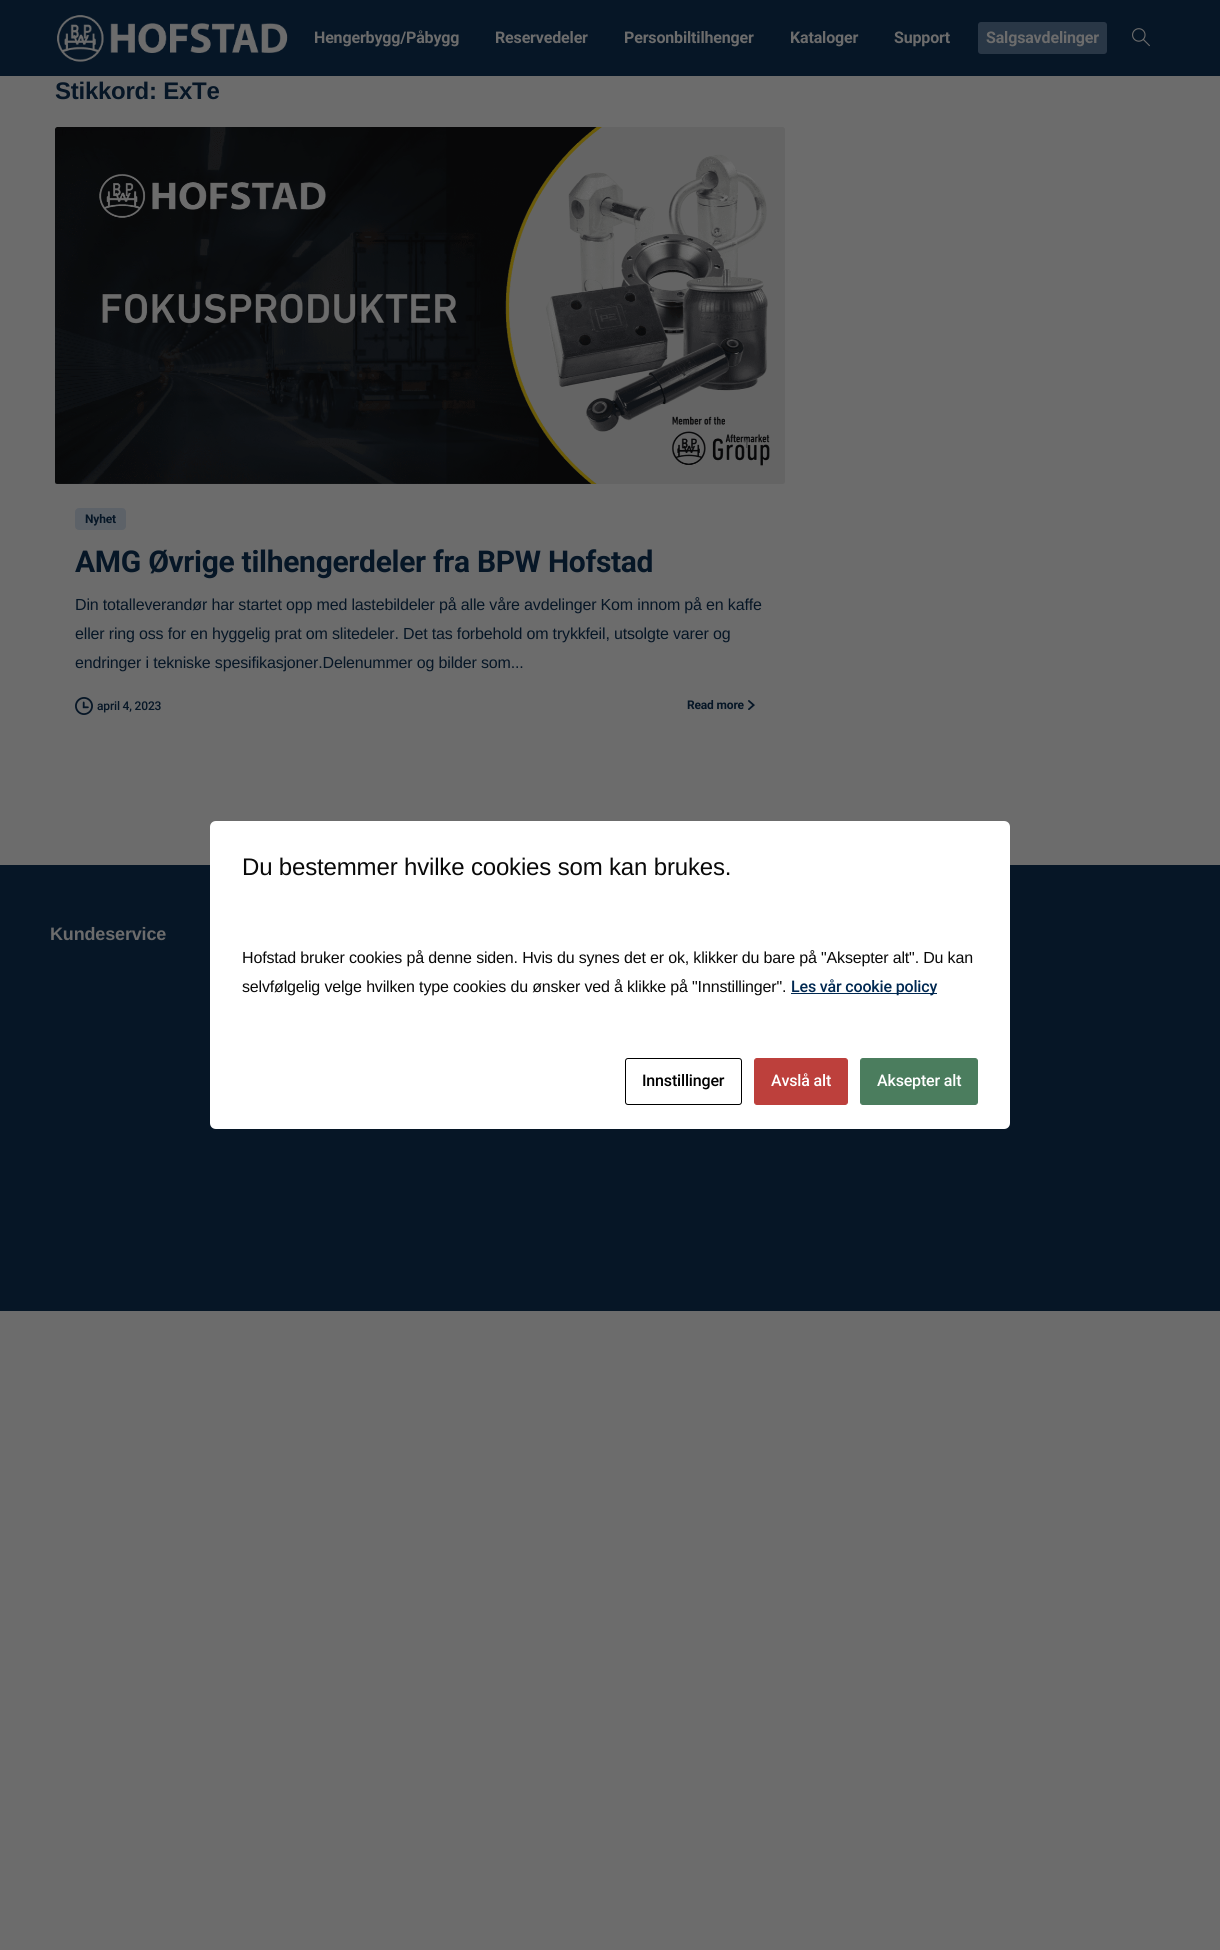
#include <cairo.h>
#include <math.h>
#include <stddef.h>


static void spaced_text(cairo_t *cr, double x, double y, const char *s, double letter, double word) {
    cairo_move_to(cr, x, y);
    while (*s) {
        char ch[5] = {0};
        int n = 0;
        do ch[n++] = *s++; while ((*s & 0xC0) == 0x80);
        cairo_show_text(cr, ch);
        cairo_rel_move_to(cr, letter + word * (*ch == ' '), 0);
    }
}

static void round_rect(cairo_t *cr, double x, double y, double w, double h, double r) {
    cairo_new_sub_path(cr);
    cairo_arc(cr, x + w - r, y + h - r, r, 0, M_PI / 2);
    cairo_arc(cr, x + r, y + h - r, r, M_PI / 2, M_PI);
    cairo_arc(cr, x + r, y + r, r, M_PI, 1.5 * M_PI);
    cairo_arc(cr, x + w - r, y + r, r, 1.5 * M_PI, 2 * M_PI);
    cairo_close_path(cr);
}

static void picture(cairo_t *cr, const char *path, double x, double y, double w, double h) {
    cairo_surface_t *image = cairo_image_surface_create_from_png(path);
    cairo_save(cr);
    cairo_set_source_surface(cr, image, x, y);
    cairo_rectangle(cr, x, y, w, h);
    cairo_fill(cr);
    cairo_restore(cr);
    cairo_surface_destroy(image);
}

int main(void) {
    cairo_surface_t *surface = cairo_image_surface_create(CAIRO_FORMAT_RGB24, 1220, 1950);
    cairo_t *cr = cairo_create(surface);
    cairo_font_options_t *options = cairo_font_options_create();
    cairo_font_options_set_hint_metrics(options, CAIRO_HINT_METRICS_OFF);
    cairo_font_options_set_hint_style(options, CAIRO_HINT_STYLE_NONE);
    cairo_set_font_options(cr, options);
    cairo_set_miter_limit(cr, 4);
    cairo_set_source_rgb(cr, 0.424, 0.424, 0.424);
    cairo_paint(cr);
    cairo_set_source_rgb(cr, 0.024, 0.086, 0.149);
    cairo_rectangle(cr, 0, 0, 1220, 76);
    cairo_fill(cr);
    picture(cr, "img1.png", 57, 15, 231, 47);
    cairo_select_font_face(cr, "Roboto", CAIRO_FONT_SLANT_NORMAL, CAIRO_FONT_WEIGHT_BOLD);
    cairo_set_font_size(cr, 16);
    cairo_set_source_rgb(cr, 0.424, 0.424, 0.424);
    spaced_text(cr, 314, 43, "Hengerbygg/Påbygg", -0.16, 0);
    spaced_text(cr, 495, 43, "Reservedeler", -0.16, 0);
    spaced_text(cr, 624, 43, "Personbiltilhenger", -0.16, 0);
    spaced_text(cr, 790, 43, "Kataloger", -0.16, 0);
    spaced_text(cr, 894, 43, "Support", -0.16, 0);
    cairo_set_source_rgb(cr, 0.161, 0.216, 0.275);
    round_rect(cr, 978, 22, 129, 32, 3);
    cairo_fill(cr);
    cairo_set_source_rgb(cr, 0.424, 0.424, 0.424);
    spaced_text(cr, 986, 43, "Salgsavdelinger", -0.16, 0);
    picture(cr, "img2.png", 1132, 28, 18, 19);
    cairo_select_font_face(cr, "Liberation Sans", CAIRO_FONT_SLANT_NORMAL, CAIRO_FONT_WEIGHT_BOLD);
    cairo_set_font_size(cr, 24);
    cairo_set_source_rgb(cr, 0.024, 0.086, 0.149);
    spaced_text(cr, 55, 99, "Stikkord: ExTe", -0.25, 0);
    picture(cr, "img3.png", 55, 127, 730, 357);
    cairo_select_font_face(cr, "Roboto", CAIRO_FONT_SLANT_NORMAL, CAIRO_FONT_WEIGHT_BOLD);
    cairo_set_font_size(cr, 12);
    cairo_set_source_rgb(cr, 0.282, 0.286, 0.286);
    spaced_text(cr, 743, 448, "1", -0.16, 0);
    cairo_set_source_rgb(cr, 0.365, 0.384, 0.408);
    round_rect(cr, 75, 508, 51, 22, 4);
    cairo_fill(cr);
    cairo_set_source_rgb(cr, 0.024, 0.086, 0.149);
    spaced_text(cr, 85, 523, "Nyhet", -0.16, 0);
    cairo_set_font_size(cr, 30);
    spaced_text(cr, 75, 572, "AMG Øvrige tilhengerdeler fra BPW Hofstad", -0.3, 0);
    cairo_select_font_face(cr, "Liberation Sans", CAIRO_FONT_SLANT_NORMAL, CAIRO_FONT_WEIGHT_NORMAL);
    cairo_set_font_size(cr, 16);
    spaced_text(cr, 75, 610, "Din totalleverandør har startet opp med lastebildeler på alle våre avdelinger Kom innom på en kaffe", -0.16, 0);
    spaced_text(cr, 75, 639, "eller ring oss for en hyggelig prat om slitedeler. Det tas forbehold om trykkfeil, utsolgte varer og", -0.16, 0);
    spaced_text(cr, 75, 668, "endringer i tekniske spesifikasjoner.Delenummer og bilder som...", -0.16, 0);
    picture(cr, "img4.png", 75, 697, 18, 18);
    cairo_select_font_face(cr, "Roboto Medium", CAIRO_FONT_SLANT_NORMAL, CAIRO_FONT_WEIGHT_NORMAL);
    cairo_set_font_size(cr, 12);
    spaced_text(cr, 97, 710, "april 4, 2023", -0.16, 0);
    cairo_select_font_face(cr, "Roboto", CAIRO_FONT_SLANT_NORMAL, CAIRO_FONT_WEIGHT_BOLD);
    spaced_text(cr, 687, 709, "Read more", -0.16, 0);
    picture(cr, "img5.png", 748, 700, 7, 10);
    cairo_rectangle(cr, 0, 865, 1220, 446);
    cairo_fill(cr);
    cairo_select_font_face(cr, "Liberation Sans", CAIRO_FONT_SLANT_NORMAL, CAIRO_FONT_WEIGHT_BOLD);
    cairo_set_font_size(cr, 18);
    cairo_set_source_rgb(cr, 0.424, 0.424, 0.424);
    spaced_text(cr, 50, 940, "Kundeservice", -0.16, 0);
    cairo_set_source_rgb(cr, 1, 1, 1);
    cairo_new_path(cr);
    cairo_move_to(cr, 216, 821);
    cairo_line_to(cr, 1004, 821);
    cairo_curve_to(cr, 1007.5, 821, 1010, 823.5, 1010, 827);
    cairo_line_to(cr, 1010, 912);
    cairo_line_to(cr, 210, 912);
    cairo_line_to(cr, 210, 827);
    cairo_curve_to(cr, 210, 823.5, 212.5, 821, 216, 821);
    cairo_close_path(cr);
    cairo_fill(cr);
    cairo_select_font_face(cr, "Liberation Sans", CAIRO_FONT_SLANT_NORMAL, CAIRO_FONT_WEIGHT_NORMAL);
    cairo_set_font_size(cr, 24);
    cairo_set_source_rgb(cr, 0.039, 0.039, 0.039);
    spaced_text(cr, 242, 875, "Du bestemmer hvilke cookies som kan brukes.", -0.16, 0);
    cairo_set_source_rgb(cr, 1, 1, 1);
    cairo_rectangle(cr, 210, 912, 800, 121);
    cairo_fill(cr);
    cairo_set_font_size(cr, 16);
    cairo_set_source_rgb(cr, 0.039, 0.039, 0.039);
    spaced_text(cr, 242, 963, "Hofstad bruker cookies på denne siden. Hvis du synes det er ok, klikker du bare på \"Aksepter alt\". Du kan", -0.16, 0);
    spaced_text(cr, 242, 992, "selvfølgelig velge hvilken type cookies du ønsker ved å klikke på \"Innstillinger\".", -0.16, 0);
    cairo_set_source_rgb(cr, 0, 0.157, 0.318);
    cairo_rectangle(cr, 791, 993, 146, 1);
    cairo_fill(cr);
    cairo_select_font_face(cr, "Roboto Medium", CAIRO_FONT_SLANT_NORMAL, CAIRO_FONT_WEIGHT_NORMAL);
    spaced_text(cr, 791, 992, "Les vår cookie policy", -0.16, 0);
    cairo_set_source_rgb(cr, 1, 1, 1);
    cairo_new_path(cr);
    cairo_move_to(cr, 210, 1033);
    cairo_line_to(cr, 1010, 1033);
    cairo_line_to(cr, 1010, 1123);
    cairo_curve_to(cr, 1010, 1126.5, 1007.5, 1129, 1004, 1129);
    cairo_line_to(cr, 216, 1129);
    cairo_curve_to(cr, 212.5, 1129, 210, 1126.5, 210, 1123);
    cairo_close_path(cr);
    cairo_fill(cr);
    round_rect(cr, 625.5, 1058.5, 116, 46, 2.5);
    cairo_set_source_rgb(cr, 0, 0, 0);
    cairo_set_line_width(cr, 1);
    cairo_stroke(cr);
    spaced_text(cr, 642, 1086, "Innstillinger", -0.16, 0);
    cairo_set_source_rgb(cr, 0.741, 0.251, 0.235);
    round_rect(cr, 754.5, 1058.5, 93, 46, 2.5);
    cairo_fill_preserve(cr);
    cairo_stroke(cr);
    cairo_set_source_rgb(cr, 1, 1, 1);
    spaced_text(cr, 771, 1086, "Avslå alt", -0.16, 0);
    cairo_set_source_rgb(cr, 0.294, 0.49, 0.369);
    round_rect(cr, 860.5, 1058.5, 117, 46, 2.5);
    cairo_fill_preserve(cr);
    cairo_stroke(cr);
    cairo_set_source_rgb(cr, 1, 1, 1);
    spaced_text(cr, 877, 1086, "Aksepter alt", -0.16, 0);
    cairo_surface_write_to_png(surface, "page.png");
    cairo_font_options_destroy(options);
    cairo_destroy(cr);
    cairo_surface_destroy(surface);
    return 0;
}
